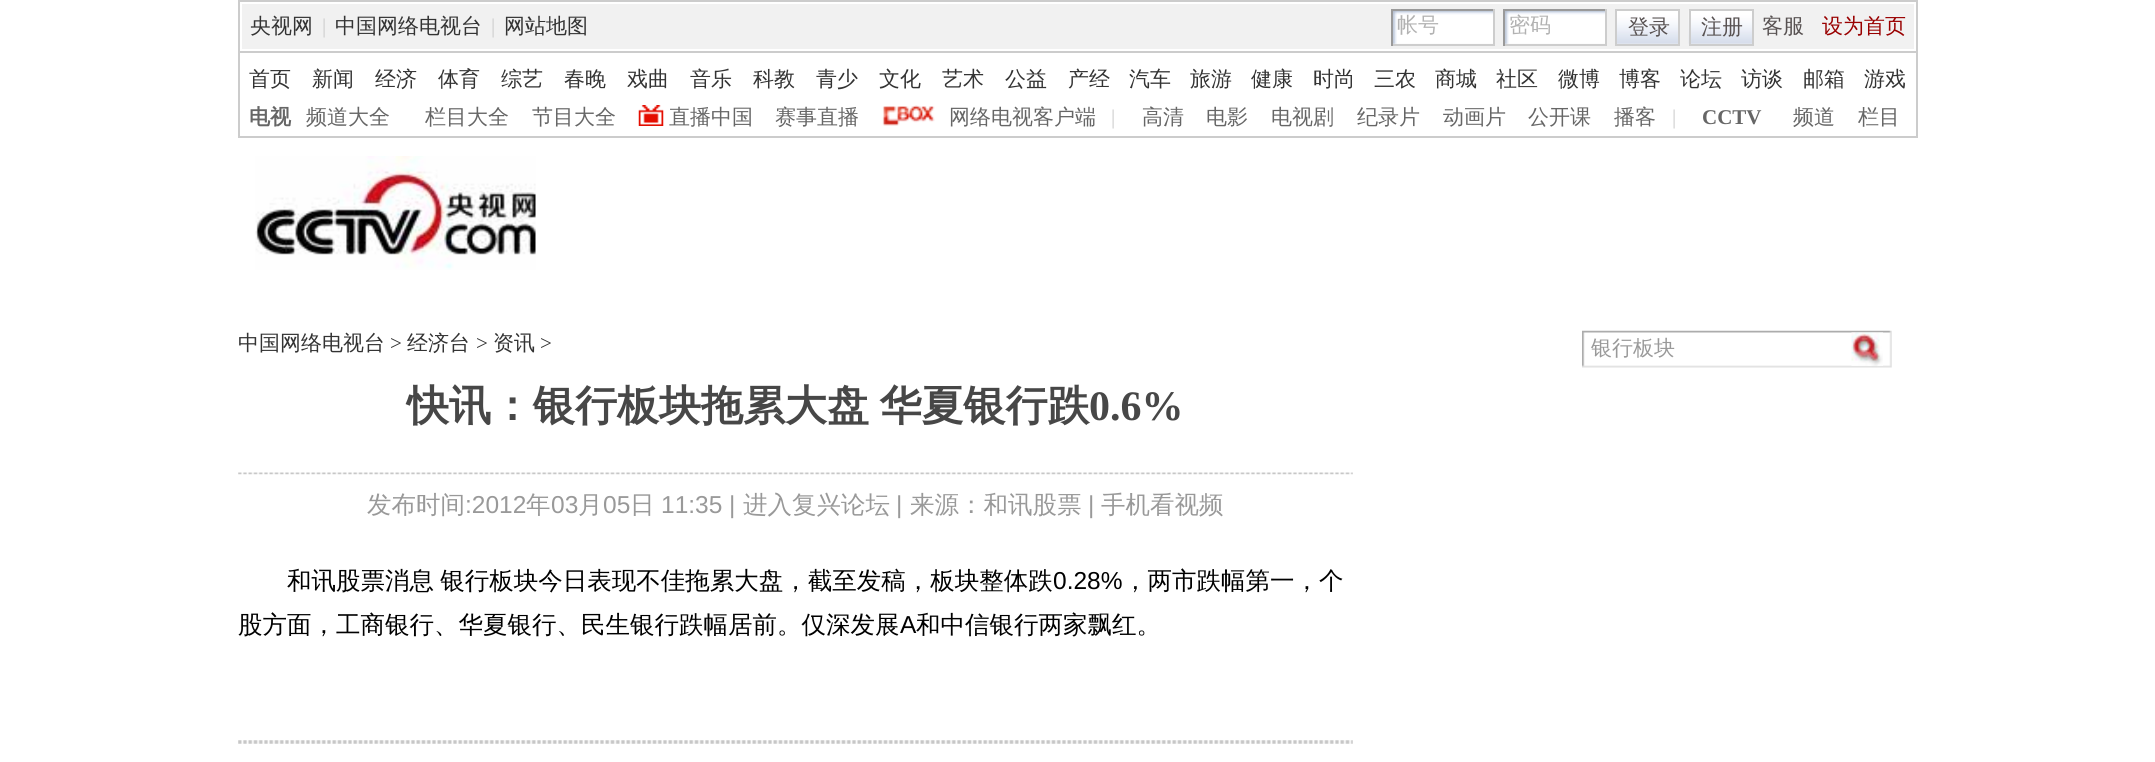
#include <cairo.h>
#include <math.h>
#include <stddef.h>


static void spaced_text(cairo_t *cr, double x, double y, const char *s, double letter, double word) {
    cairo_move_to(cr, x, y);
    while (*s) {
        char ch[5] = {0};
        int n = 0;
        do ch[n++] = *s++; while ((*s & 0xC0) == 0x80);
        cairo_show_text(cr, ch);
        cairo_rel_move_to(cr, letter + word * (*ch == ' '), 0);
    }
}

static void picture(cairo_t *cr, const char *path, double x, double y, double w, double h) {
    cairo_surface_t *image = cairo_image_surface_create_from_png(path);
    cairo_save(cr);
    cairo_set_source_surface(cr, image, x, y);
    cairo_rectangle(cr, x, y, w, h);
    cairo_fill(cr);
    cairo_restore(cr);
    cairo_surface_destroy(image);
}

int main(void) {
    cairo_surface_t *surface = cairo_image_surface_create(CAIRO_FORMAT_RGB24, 2155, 762);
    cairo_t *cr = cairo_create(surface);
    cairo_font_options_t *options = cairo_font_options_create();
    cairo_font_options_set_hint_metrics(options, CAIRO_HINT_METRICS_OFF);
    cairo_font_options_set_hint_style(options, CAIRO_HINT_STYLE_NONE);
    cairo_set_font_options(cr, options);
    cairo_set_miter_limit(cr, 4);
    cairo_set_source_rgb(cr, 1, 1, 1);
    cairo_paint(cr);
    cairo_rectangle(cr, 239, 1, 1678, 136);
    cairo_set_source_rgb(cr, 0.8, 0.8, 0.8);
    cairo_stroke(cr);
    cairo_set_source_rgb(cr, 0.945, 0.945, 0.945);
    cairo_rectangle(cr, 242, 4, 1672, 45);
    cairo_fill(cr);
    cairo_select_font_face(cr, "WenQuanYi Zen Hei Medium", CAIRO_FONT_SLANT_NORMAL, CAIRO_FONT_WEIGHT_NORMAL);
    cairo_set_font_size(cr, 21);
    cairo_set_source_rgb(cr, 0.2, 0.2, 0.2);
    cairo_move_to(cr, 250, 33);
    cairo_show_text(cr, "央视网");
    cairo_select_font_face(cr, "Liberation Serif", CAIRO_FONT_SLANT_NORMAL, CAIRO_FONT_WEIGHT_NORMAL);
    cairo_set_source_rgb(cr, 0.8, 0.8, 0.8);
    cairo_move_to(cr, 322, 33);
    cairo_show_text(cr, "|");
    cairo_select_font_face(cr, "WenQuanYi Zen Hei Medium", CAIRO_FONT_SLANT_NORMAL, CAIRO_FONT_WEIGHT_NORMAL);
    cairo_set_source_rgb(cr, 0.2, 0.2, 0.2);
    cairo_move_to(cr, 335, 33);
    cairo_show_text(cr, "中国网络电视台");
    cairo_select_font_face(cr, "Liberation Serif", CAIRO_FONT_SLANT_NORMAL, CAIRO_FONT_WEIGHT_NORMAL);
    cairo_set_source_rgb(cr, 0.8, 0.8, 0.8);
    cairo_move_to(cr, 491, 33);
    cairo_show_text(cr, "|");
    cairo_select_font_face(cr, "WenQuanYi Zen Hei Medium", CAIRO_FONT_SLANT_NORMAL, CAIRO_FONT_WEIGHT_NORMAL);
    cairo_set_source_rgb(cr, 0.2, 0.2, 0.2);
    cairo_move_to(cr, 504, 33);
    cairo_show_text(cr, "网站地图");
    picture(cr, "img1.png", 1393, 11, 100, 33);
    cairo_set_source_rgb(cr, 0.604, 0.604, 0.604);
    cairo_rectangle(cr, 1391, 9, 104, 2);
    cairo_fill(cr);
    cairo_set_source_rgb(cr, 0.804, 0.804, 0.804);
    cairo_rectangle(cr, 1493, 9, 2, 37);
    cairo_fill(cr);
    cairo_rectangle(cr, 1391, 44, 104, 2);
    cairo_fill(cr);
    cairo_set_source_rgb(cr, 0.604, 0.604, 0.604);
    cairo_rectangle(cr, 1391, 9, 2, 37);
    cairo_fill(cr);
    cairo_set_source_rgb(cr, 0.698, 0.698, 0.698);
    cairo_move_to(cr, 1397, 32);
    cairo_show_text(cr, "帐号");
    picture(cr, "img2.png", 1505, 11, 100, 33);
    cairo_set_source_rgb(cr, 0.604, 0.604, 0.604);
    cairo_rectangle(cr, 1503, 9, 104, 2);
    cairo_fill(cr);
    cairo_set_source_rgb(cr, 0.804, 0.804, 0.804);
    cairo_rectangle(cr, 1605, 9, 2, 37);
    cairo_fill(cr);
    cairo_rectangle(cr, 1503, 44, 104, 2);
    cairo_fill(cr);
    cairo_set_source_rgb(cr, 0.604, 0.604, 0.604);
    cairo_rectangle(cr, 1503, 9, 2, 37);
    cairo_fill(cr);
    cairo_set_source_rgb(cr, 0.698, 0.698, 0.698);
    cairo_move_to(cr, 1509, 32);
    cairo_show_text(cr, "密码");
    picture(cr, "img3.png", 1617, 11, 61, 33);
    cairo_rectangle(cr, 1616, 10, 63, 35);
    cairo_set_source_rgb(cr, 0.804, 0.804, 0.804);
    cairo_stroke(cr);
    cairo_set_source_rgb(cr, 0.345, 0.322, 0.322);
    cairo_move_to(cr, 1628, 34);
    cairo_show_text(cr, "登录");
    picture(cr, "img4.png", 1688, 10, 64, 34);
    cairo_rectangle(cr, 1690, 10, 63, 35);
    cairo_set_source_rgb(cr, 0.804, 0.804, 0.804);
    cairo_stroke(cr);
    cairo_set_source_rgb(cr, 0.345, 0.322, 0.322);
    cairo_move_to(cr, 1701, 34);
    cairo_show_text(cr, "注册");
    cairo_move_to(cr, 1762, 33);
    cairo_show_text(cr, "客服");
    cairo_set_source_rgb(cr, 0.6, 0, 0);
    cairo_move_to(cr, 1822, 33);
    cairo_show_text(cr, "设为首页");
    cairo_set_source_rgb(cr, 0.8, 0.8, 0.8);
    cairo_rectangle(cr, 240, 51, 1676, 2);
    cairo_fill(cr);
    cairo_set_source_rgb(cr, 0.2, 0.2, 0.2);
    cairo_move_to(cr, 249, 86);
    cairo_show_text(cr, "首页");
    cairo_move_to(cr, 312, 86);
    cairo_show_text(cr, "新闻");
    cairo_move_to(cr, 375, 86);
    cairo_show_text(cr, "经济");
    cairo_move_to(cr, 438, 86);
    cairo_show_text(cr, "体育");
    cairo_move_to(cr, 501, 86);
    cairo_show_text(cr, "综艺");
    cairo_move_to(cr, 564, 86);
    cairo_show_text(cr, "春晚");
    cairo_move_to(cr, 627, 86);
    cairo_show_text(cr, "戏曲");
    cairo_move_to(cr, 690, 86);
    cairo_show_text(cr, "音乐");
    cairo_move_to(cr, 753, 86);
    cairo_show_text(cr, "科教");
    cairo_move_to(cr, 816, 86);
    cairo_show_text(cr, "青少");
    cairo_move_to(cr, 879, 86);
    cairo_show_text(cr, "文化");
    cairo_move_to(cr, 942, 86);
    cairo_show_text(cr, "艺术");
    cairo_move_to(cr, 1005, 86);
    cairo_show_text(cr, "公益");
    cairo_move_to(cr, 1068, 86);
    cairo_show_text(cr, "产经");
    cairo_move_to(cr, 1129, 86);
    cairo_show_text(cr, "汽车");
    cairo_move_to(cr, 1190, 86);
    cairo_show_text(cr, "旅游");
    cairo_move_to(cr, 1251, 86);
    cairo_show_text(cr, "健康");
    cairo_move_to(cr, 1313, 86);
    cairo_show_text(cr, "时尚");
    cairo_move_to(cr, 1374, 86);
    cairo_show_text(cr, "三农");
    cairo_move_to(cr, 1435, 86);
    cairo_show_text(cr, "商城");
    cairo_move_to(cr, 1496, 86);
    cairo_show_text(cr, "社区");
    cairo_move_to(cr, 1558, 86);
    cairo_show_text(cr, "微博");
    cairo_move_to(cr, 1619, 86);
    cairo_show_text(cr, "博客");
    cairo_move_to(cr, 1680, 86);
    cairo_show_text(cr, "论坛");
    cairo_move_to(cr, 1741, 86);
    cairo_show_text(cr, "访谈");
    cairo_move_to(cr, 1803, 86);
    cairo_show_text(cr, "邮箱");
    cairo_move_to(cr, 1864, 86);
    cairo_show_text(cr, "游戏");
    cairo_select_font_face(cr, "WenQuanYi Zen Hei", CAIRO_FONT_SLANT_NORMAL, CAIRO_FONT_WEIGHT_BOLD);
    cairo_set_source_rgb(cr, 0.4, 0.4, 0.4);
    cairo_move_to(cr, 249, 124);
    cairo_show_text(cr, "电视");
    cairo_select_font_face(cr, "WenQuanYi Zen Hei Medium", CAIRO_FONT_SLANT_NORMAL, CAIRO_FONT_WEIGHT_NORMAL);
    cairo_move_to(cr, 306, 124);
    cairo_show_text(cr, "频道大全");
    cairo_move_to(cr, 425, 124);
    cairo_show_text(cr, "栏目大全");
    cairo_move_to(cr, 532, 124);
    cairo_show_text(cr, "节目大全");
    picture(cr, "img5.png", 638, 105, 26, 21);
    cairo_move_to(cr, 669, 124);
    cairo_show_text(cr, "直播中国");
    cairo_move_to(cr, 775, 124);
    cairo_show_text(cr, "赛事直播");
    picture(cr, "img6.png", 882, 105, 53, 21);
    cairo_move_to(cr, 949, 124);
    cairo_show_text(cr, "网络电视客户端");
    cairo_select_font_face(cr, "Liberation Serif", CAIRO_FONT_SLANT_NORMAL, CAIRO_FONT_WEIGHT_NORMAL);
    cairo_set_source_rgb(cr, 0.8, 0.8, 0.8);
    cairo_move_to(cr, 1111, 124);
    cairo_show_text(cr, "|");
    cairo_select_font_face(cr, "WenQuanYi Zen Hei Medium", CAIRO_FONT_SLANT_NORMAL, CAIRO_FONT_WEIGHT_NORMAL);
    cairo_set_source_rgb(cr, 0.4, 0.4, 0.4);
    cairo_move_to(cr, 1142, 124);
    cairo_show_text(cr, "高清");
    cairo_move_to(cr, 1206, 124);
    cairo_show_text(cr, "电影");
    cairo_move_to(cr, 1271, 124);
    cairo_show_text(cr, "电视剧");
    cairo_move_to(cr, 1357, 124);
    cairo_show_text(cr, "纪录片");
    cairo_move_to(cr, 1443, 124);
    cairo_show_text(cr, "动画片");
    cairo_move_to(cr, 1528, 124);
    cairo_show_text(cr, "公开课");
    cairo_move_to(cr, 1614, 124);
    cairo_show_text(cr, "播客");
    cairo_select_font_face(cr, "Liberation Serif", CAIRO_FONT_SLANT_NORMAL, CAIRO_FONT_WEIGHT_NORMAL);
    cairo_set_source_rgb(cr, 0.8, 0.8, 0.8);
    cairo_move_to(cr, 1672, 124);
    cairo_show_text(cr, "|");
    cairo_select_font_face(cr, "Liberation Serif", CAIRO_FONT_SLANT_NORMAL, CAIRO_FONT_WEIGHT_BOLD);
    cairo_set_source_rgb(cr, 0.4, 0.4, 0.4);
    cairo_move_to(cr, 1702, 124);
    cairo_show_text(cr, "CCTV");
    cairo_select_font_face(cr, "WenQuanYi Zen Hei Medium", CAIRO_FONT_SLANT_NORMAL, CAIRO_FONT_WEIGHT_NORMAL);
    cairo_move_to(cr, 1793, 124);
    cairo_show_text(cr, "频道");
    cairo_move_to(cr, 1858, 124);
    cairo_show_text(cr, "栏目");
    picture(cr, "img7.png", 255, 156, 281, 114);
    cairo_set_source_rgb(cr, 0.2, 0.2, 0.2);
    cairo_move_to(cr, 238, 350);
    cairo_show_text(cr, "中国网络电视台");
    cairo_select_font_face(cr, "Liberation Serif", CAIRO_FONT_SLANT_NORMAL, CAIRO_FONT_WEIGHT_NORMAL);
    cairo_move_to(cr, 390, 350);
    cairo_show_text(cr, ">");
    cairo_select_font_face(cr, "WenQuanYi Zen Hei Medium", CAIRO_FONT_SLANT_NORMAL, CAIRO_FONT_WEIGHT_NORMAL);
    cairo_move_to(cr, 407, 350);
    cairo_show_text(cr, "经济台");
    cairo_select_font_face(cr, "Liberation Serif", CAIRO_FONT_SLANT_NORMAL, CAIRO_FONT_WEIGHT_NORMAL);
    cairo_move_to(cr, 476, 350);
    cairo_show_text(cr, ">");
    cairo_select_font_face(cr, "WenQuanYi Zen Hei Medium", CAIRO_FONT_SLANT_NORMAL, CAIRO_FONT_WEIGHT_NORMAL);
    cairo_move_to(cr, 493, 350);
    cairo_show_text(cr, "资讯");
    cairo_select_font_face(cr, "Liberation Serif", CAIRO_FONT_SLANT_NORMAL, CAIRO_FONT_WEIGHT_NORMAL);
    cairo_move_to(cr, 540, 350);
    cairo_show_text(cr, ">");
    picture(cr, "img8.png", 1582, 330, 310, 38);
    cairo_select_font_face(cr, "WenQuanYi Zen Hei Medium", CAIRO_FONT_SLANT_NORMAL, CAIRO_FONT_WEIGHT_NORMAL);
    cairo_set_source_rgb(cr, 0.6, 0.6, 0.6);
    cairo_move_to(cr, 1591, 355);
    cairo_show_text(cr, "银行板块");
    picture(cr, "img9.png", 1851, 332, 32, 34);
    cairo_select_font_face(cr, "WenQuanYi Zen Hei", CAIRO_FONT_SLANT_NORMAL, CAIRO_FONT_WEIGHT_BOLD);
    cairo_set_font_size(cr, 42);
    cairo_set_source_rgb(cr, 0.278, 0.278, 0.278);
    spaced_text(cr, 407, 420, "快讯：银行板块拖累大盘 华夏银行跌", 0, -2);
    cairo_select_font_face(cr, "Liberation Serif", CAIRO_FONT_SLANT_NORMAL, CAIRO_FONT_WEIGHT_BOLD);
    cairo_move_to(cr, 1089, 420);
    cairo_show_text(cr, "0.6%");
    picture(cr, "img10.png", 238, 472, 1115, 3);
    cairo_select_font_face(cr, "WenQuanYi Zen Hei Medium", CAIRO_FONT_SLANT_NORMAL, CAIRO_FONT_WEIGHT_NORMAL);
    cairo_set_font_size(cr, 24.5);
    cairo_set_source_rgb(cr, 0.6, 0.6, 0.6);
    cairo_move_to(cr, 367, 513);
    cairo_show_text(cr, "发布时间");
    cairo_select_font_face(cr, "Liberation Sans", CAIRO_FONT_SLANT_NORMAL, CAIRO_FONT_WEIGHT_NORMAL);
    cairo_move_to(cr, 465, 513);
    cairo_show_text(cr, ":2012");
    cairo_select_font_face(cr, "WenQuanYi Zen Hei Medium", CAIRO_FONT_SLANT_NORMAL, CAIRO_FONT_WEIGHT_NORMAL);
    cairo_move_to(cr, 526, 513);
    cairo_show_text(cr, "年");
    cairo_select_font_face(cr, "Liberation Sans", CAIRO_FONT_SLANT_NORMAL, CAIRO_FONT_WEIGHT_NORMAL);
    cairo_move_to(cr, 551, 513);
    cairo_show_text(cr, "03");
    cairo_select_font_face(cr, "WenQuanYi Zen Hei Medium", CAIRO_FONT_SLANT_NORMAL, CAIRO_FONT_WEIGHT_NORMAL);
    cairo_move_to(cr, 578, 513);
    cairo_show_text(cr, "月");
    cairo_select_font_face(cr, "Liberation Sans", CAIRO_FONT_SLANT_NORMAL, CAIRO_FONT_WEIGHT_NORMAL);
    cairo_move_to(cr, 603, 513);
    cairo_show_text(cr, "05");
    cairo_select_font_face(cr, "WenQuanYi Zen Hei Medium", CAIRO_FONT_SLANT_NORMAL, CAIRO_FONT_WEIGHT_NORMAL);
    cairo_move_to(cr, 630, 513);
    cairo_show_text(cr, "日");
    cairo_select_font_face(cr, "Liberation Sans", CAIRO_FONT_SLANT_NORMAL, CAIRO_FONT_WEIGHT_NORMAL);
    cairo_move_to(cr, 661, 513);
    cairo_show_text(cr, "11:35 |");
    cairo_select_font_face(cr, "WenQuanYi Zen Hei Medium", CAIRO_FONT_SLANT_NORMAL, CAIRO_FONT_WEIGHT_NORMAL);
    cairo_move_to(cr, 743, 513);
    cairo_show_text(cr, "进入复兴论坛");
    cairo_select_font_face(cr, "Liberation Sans", CAIRO_FONT_SLANT_NORMAL, CAIRO_FONT_WEIGHT_NORMAL);
    cairo_move_to(cr, 896, 513);
    cairo_show_text(cr, "|");
    cairo_select_font_face(cr, "WenQuanYi Zen Hei Medium", CAIRO_FONT_SLANT_NORMAL, CAIRO_FONT_WEIGHT_NORMAL);
    cairo_move_to(cr, 910, 513);
    cairo_show_text(cr, "来源：和讯股票");
    cairo_select_font_face(cr, "Liberation Sans", CAIRO_FONT_SLANT_NORMAL, CAIRO_FONT_WEIGHT_NORMAL);
    cairo_move_to(cr, 1088, 513);
    cairo_show_text(cr, "|");
    cairo_select_font_face(cr, "WenQuanYi Zen Hei Medium", CAIRO_FONT_SLANT_NORMAL, CAIRO_FONT_WEIGHT_NORMAL);
    cairo_move_to(cr, 1101, 513);
    cairo_show_text(cr, "手机看视频");
    cairo_set_source_rgb(cr, 0, 0, 0);
    spaced_text(cr, 287, 589, "和讯股票消息 银行板块今日表现不佳拖累大盘，截至发稿，板块整体跌", 0, -1);
    cairo_select_font_face(cr, "Liberation Sans", CAIRO_FONT_SLANT_NORMAL, CAIRO_FONT_WEIGHT_NORMAL);
    cairo_move_to(cr, 1053, 589);
    cairo_show_text(cr, "0.28%");
    cairo_select_font_face(cr, "WenQuanYi Zen Hei Medium", CAIRO_FONT_SLANT_NORMAL, CAIRO_FONT_WEIGHT_NORMAL);
    cairo_move_to(cr, 1123, 589);
    cairo_show_text(cr, "，两市跌幅第一，个");
    cairo_move_to(cr, 238, 633);
    cairo_show_text(cr, "股方面，工商银行、华夏银行、民生银行跌幅居前。仅深发展");
    cairo_select_font_face(cr, "Liberation Sans", CAIRO_FONT_SLANT_NORMAL, CAIRO_FONT_WEIGHT_NORMAL);
    cairo_move_to(cr, 900, 633);
    cairo_show_text(cr, "A");
    cairo_select_font_face(cr, "WenQuanYi Zen Hei Medium", CAIRO_FONT_SLANT_NORMAL, CAIRO_FONT_WEIGHT_NORMAL);
    cairo_move_to(cr, 916, 633);
    cairo_show_text(cr, "和中信银行两家飘红。");
    picture(cr, "img11.png", 238, 740, 1115, 4);
    cairo_surface_write_to_png(surface, "page.png");
    cairo_font_options_destroy(options);
    cairo_destroy(cr);
    cairo_surface_destroy(surface);
    return 0;
}
